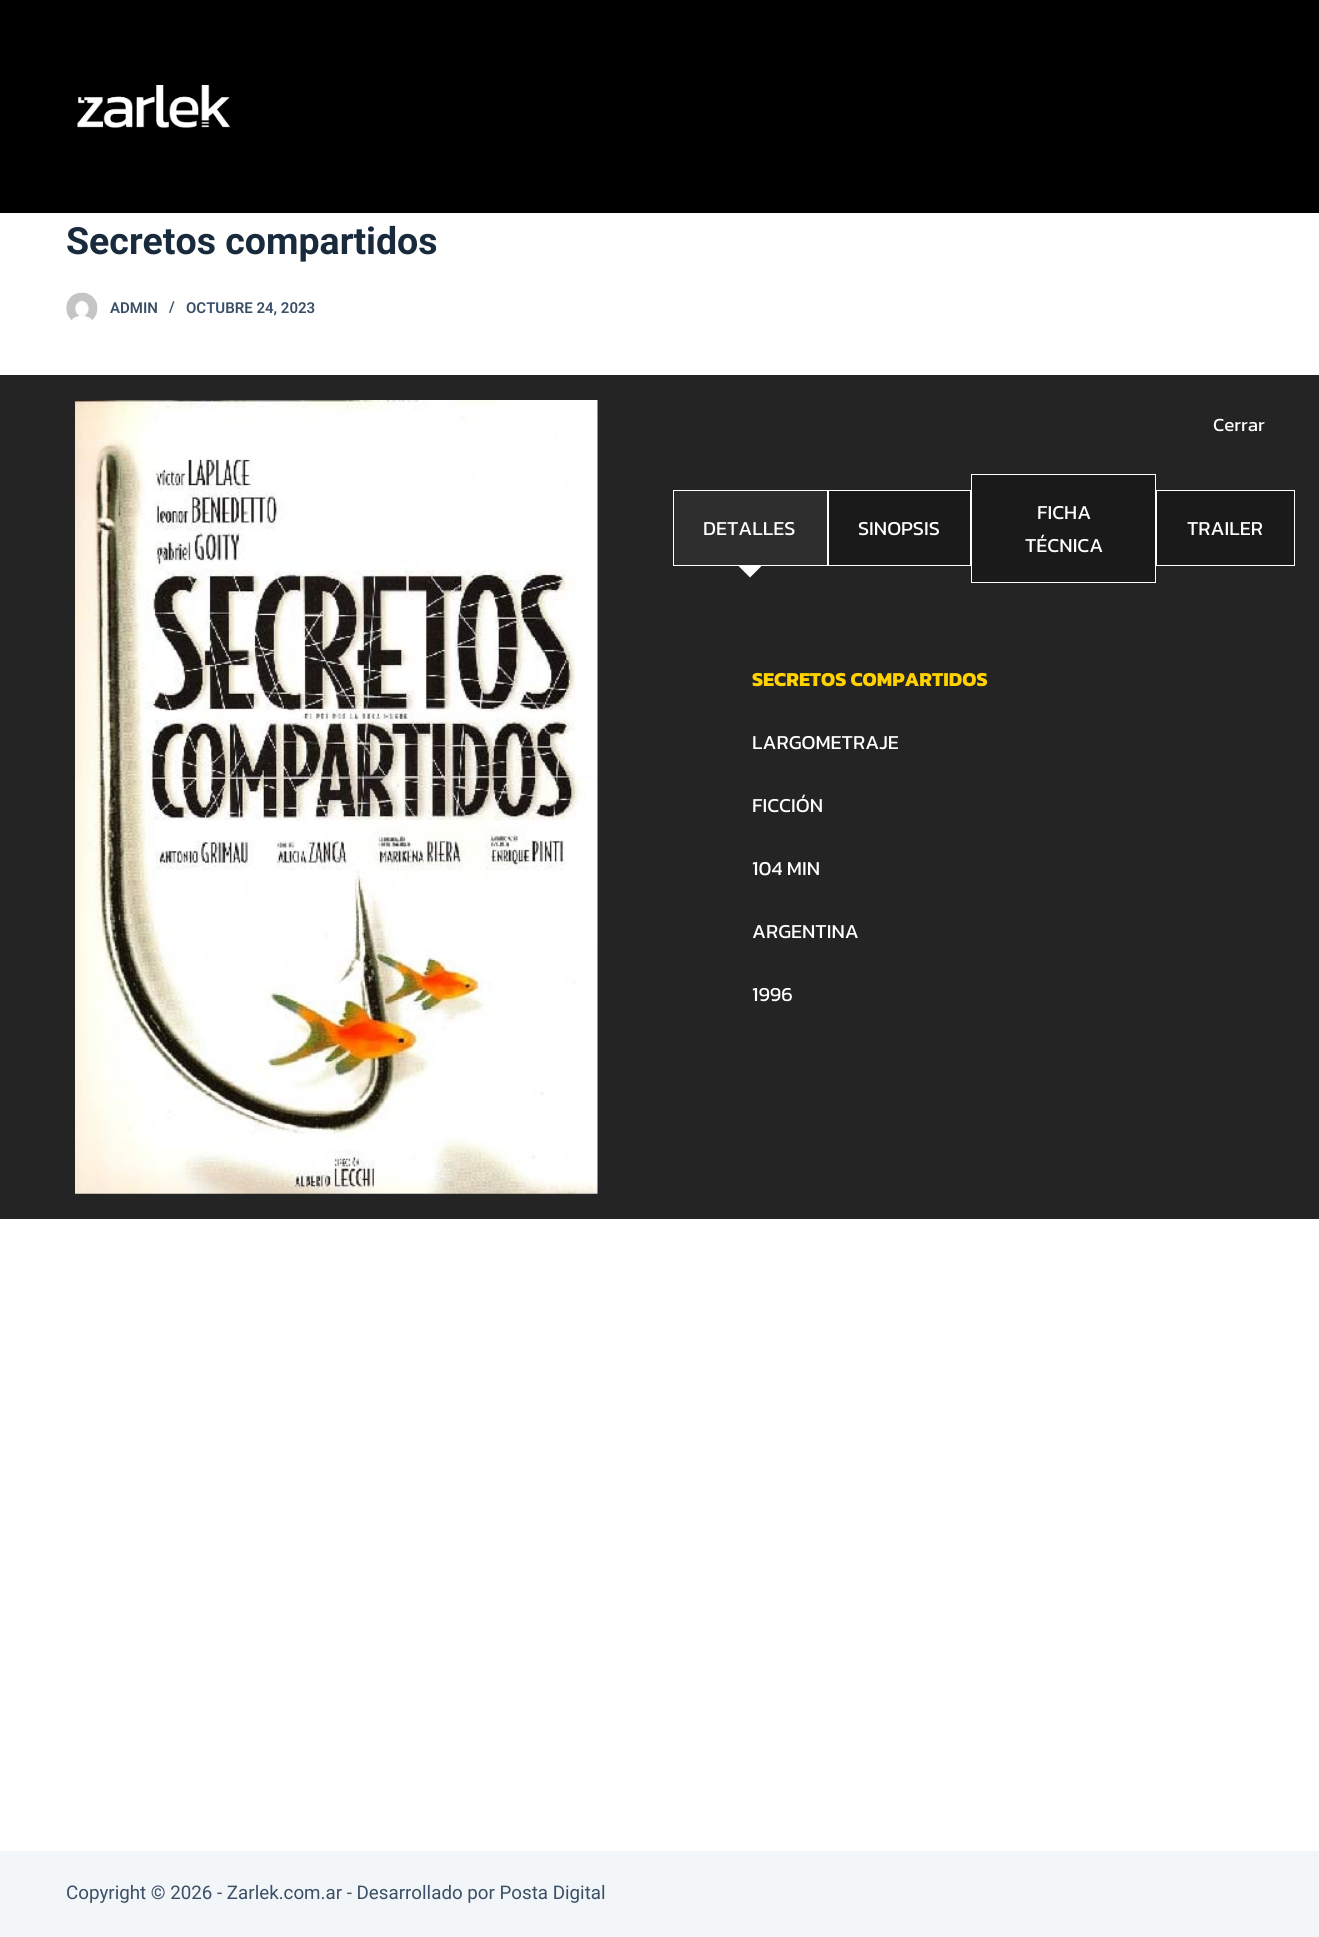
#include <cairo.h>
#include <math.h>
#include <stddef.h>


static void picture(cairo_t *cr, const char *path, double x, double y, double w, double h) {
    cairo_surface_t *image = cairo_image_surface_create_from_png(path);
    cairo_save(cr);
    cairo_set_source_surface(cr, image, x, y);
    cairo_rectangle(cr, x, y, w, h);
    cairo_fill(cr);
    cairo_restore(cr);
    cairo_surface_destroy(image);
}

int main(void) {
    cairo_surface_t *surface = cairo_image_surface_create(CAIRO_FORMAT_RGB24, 1319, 1937);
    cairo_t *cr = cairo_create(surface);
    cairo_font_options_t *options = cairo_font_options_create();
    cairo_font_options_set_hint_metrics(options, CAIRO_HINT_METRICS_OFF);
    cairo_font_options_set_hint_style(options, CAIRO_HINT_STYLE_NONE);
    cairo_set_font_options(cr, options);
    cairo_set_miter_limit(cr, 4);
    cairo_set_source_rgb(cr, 1, 1, 1);
    cairo_paint(cr);
    cairo_set_source_rgb(cr, 0, 0, 0);
    cairo_rectangle(cr, 0, 0, 1319, 213);
    cairo_fill(cr);
    picture(cr, "img1.png", 77, 85, 153, 43);
    cairo_select_font_face(cr, "Roboto", CAIRO_FONT_SLANT_NORMAL, CAIRO_FONT_WEIGHT_BOLD);
    cairo_set_font_size(cr, 37.5);
    cairo_set_source_rgb(cr, 0.098, 0.165, 0.239);
    cairo_move_to(cr, 66, 254);
    cairo_show_text(cr, "Secretos compartidos");
    picture(cr, "img2.png", 66, 292, 32, 30);
    cairo_select_font_face(cr, "Roboto SemiBold", CAIRO_FONT_SLANT_NORMAL, CAIRO_FONT_WEIGHT_NORMAL);
    cairo_set_font_size(cr, 15);
    cairo_set_source_rgb(cr, 0.227, 0.31, 0.4);
    cairo_move_to(cr, 110, 313);
    cairo_show_text(cr, "ADMIN");
    cairo_move_to(cr, 169, 312);
    cairo_show_text(cr, "/");
    cairo_move_to(cr, 186, 313);
    cairo_show_text(cr, "OCTUBRE 24, 2023");
    cairo_set_source_rgb(cr, 0.141, 0.141, 0.141);
    cairo_rectangle(cr, 0, 375, 1319, 844);
    cairo_fill(cr);
    picture(cr, "img3.png", 75, 400, 523, 794);
    cairo_select_font_face(cr, "Kanit", CAIRO_FONT_SLANT_NORMAL, CAIRO_FONT_WEIGHT_NORMAL);
    cairo_set_font_size(cr, 18.75);
    cairo_set_source_rgb(cr, 1, 1, 1);
    cairo_move_to(cr, 1213, 431);
    cairo_show_text(cr, "Cerrar");
    cairo_set_source_rgb(cr, 0.18, 0.18, 0.18);
    cairo_rectangle(cr, 673.5, 490.5, 154, 75);
    cairo_fill_preserve(cr);
    cairo_set_source_rgb(cr, 1, 1, 1);
    cairo_set_line_width(cr, 1);
    cairo_stroke(cr);
    cairo_set_font_size(cr, 20);
    cairo_move_to(cr, 703, 535);
    cairo_show_text(cr, "DETALLES");
    cairo_new_path(cr);
    cairo_move_to(cr, 737.5, 565);
    cairo_line_to(cr, 762.5, 565);
    cairo_line_to(cr, 750, 577.5);
    cairo_close_path(cr);
    cairo_fill(cr);
    cairo_set_source_rgb(cr, 0.102, 0.102, 0.102);
    cairo_rectangle(cr, 828.5, 490.5, 142, 75);
    cairo_fill_preserve(cr);
    cairo_set_source_rgb(cr, 1, 1, 1);
    cairo_stroke(cr);
    cairo_move_to(cr, 858, 535);
    cairo_show_text(cr, "SINOPSIS");
    cairo_set_source_rgb(cr, 0.102, 0.102, 0.102);
    cairo_rectangle(cr, 971.5, 474.5, 184, 108);
    cairo_fill_preserve(cr);
    cairo_set_source_rgb(cr, 1, 1, 1);
    cairo_stroke(cr);
    cairo_move_to(cr, 1037, 519);
    cairo_show_text(cr, "FICHA");
    cairo_move_to(cr, 1025, 552);
    cairo_show_text(cr, "TÉCNICA");
    cairo_set_source_rgb(cr, 0.102, 0.102, 0.102);
    cairo_rectangle(cr, 1156.5, 490.5, 138, 75);
    cairo_fill_preserve(cr);
    cairo_set_source_rgb(cr, 1, 1, 1);
    cairo_stroke(cr);
    cairo_move_to(cr, 1187, 535);
    cairo_show_text(cr, "TRAILER");
    cairo_select_font_face(cr, "Kanit", CAIRO_FONT_SLANT_NORMAL, CAIRO_FONT_WEIGHT_BOLD);
    cairo_set_source_rgb(cr, 1, 0.824, 0);
    cairo_move_to(cr, 752, 686);
    cairo_show_text(cr, "SECRETOS COMPARTIDOS");
    cairo_select_font_face(cr, "Kanit", CAIRO_FONT_SLANT_NORMAL, CAIRO_FONT_WEIGHT_NORMAL);
    cairo_set_source_rgb(cr, 1, 1, 1);
    cairo_move_to(cr, 752, 749);
    cairo_show_text(cr, "LARGOMETRAJE");
    cairo_move_to(cr, 752, 812);
    cairo_show_text(cr, "FICCIÓN");
    cairo_move_to(cr, 752, 875);
    cairo_show_text(cr, "104 MIN");
    cairo_move_to(cr, 752, 938);
    cairo_show_text(cr, "ARGENTINA");
    cairo_move_to(cr, 752, 1001);
    cairo_show_text(cr, "1996");
    cairo_set_source_rgb(cr, 0.949, 0.961, 0.969);
    cairo_rectangle(cr, 0, 1851, 1319, 86);
    cairo_fill(cr);
    cairo_select_font_face(cr, "Roboto", CAIRO_FONT_SLANT_NORMAL, CAIRO_FONT_WEIGHT_NORMAL);
    cairo_set_font_size(cr, 18.75);
    cairo_set_source_rgb(cr, 0.227, 0.31, 0.4);
    cairo_move_to(cr, 66, 1899);
    cairo_show_text(cr, "Copyright © 2026 - Zarlek.com.ar - Desarrollado por Posta Digital");
    cairo_surface_write_to_png(surface, "page.png");
    cairo_font_options_destroy(options);
    cairo_destroy(cr);
    cairo_surface_destroy(surface);
    return 0;
}
